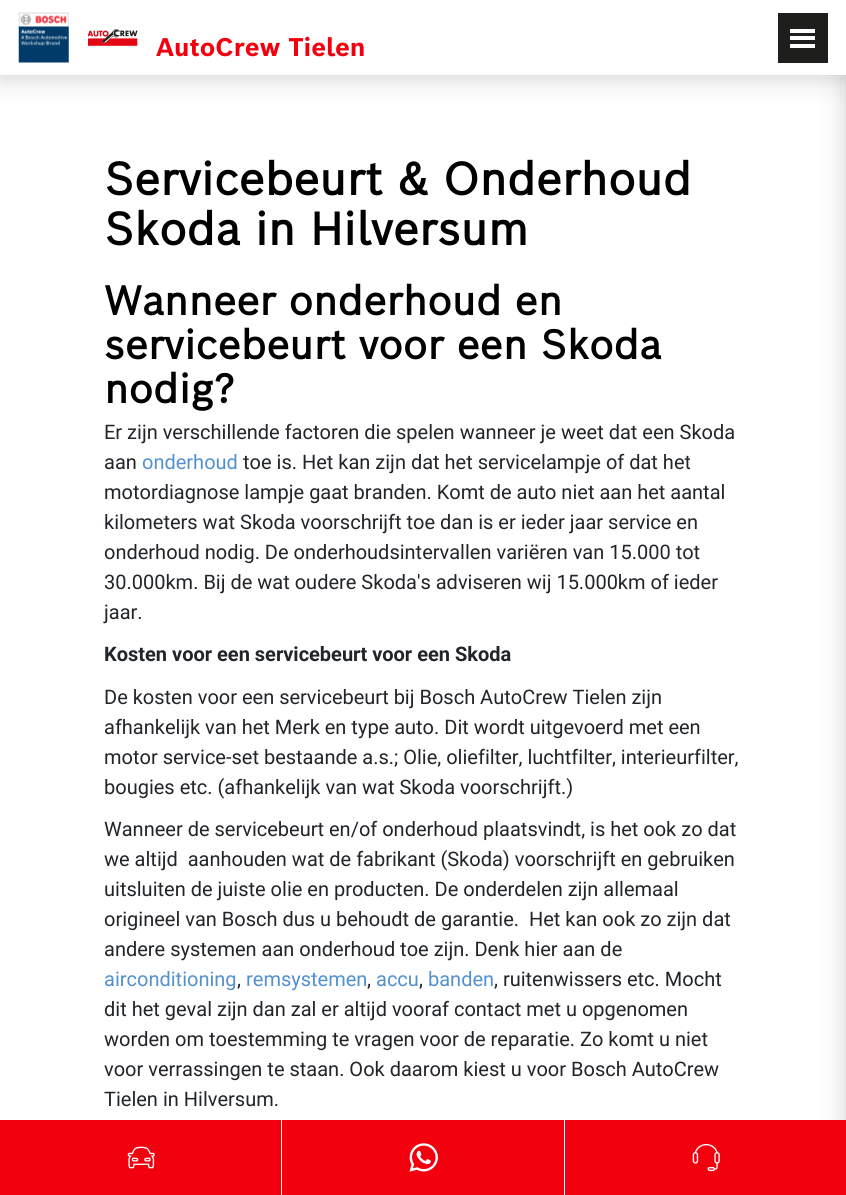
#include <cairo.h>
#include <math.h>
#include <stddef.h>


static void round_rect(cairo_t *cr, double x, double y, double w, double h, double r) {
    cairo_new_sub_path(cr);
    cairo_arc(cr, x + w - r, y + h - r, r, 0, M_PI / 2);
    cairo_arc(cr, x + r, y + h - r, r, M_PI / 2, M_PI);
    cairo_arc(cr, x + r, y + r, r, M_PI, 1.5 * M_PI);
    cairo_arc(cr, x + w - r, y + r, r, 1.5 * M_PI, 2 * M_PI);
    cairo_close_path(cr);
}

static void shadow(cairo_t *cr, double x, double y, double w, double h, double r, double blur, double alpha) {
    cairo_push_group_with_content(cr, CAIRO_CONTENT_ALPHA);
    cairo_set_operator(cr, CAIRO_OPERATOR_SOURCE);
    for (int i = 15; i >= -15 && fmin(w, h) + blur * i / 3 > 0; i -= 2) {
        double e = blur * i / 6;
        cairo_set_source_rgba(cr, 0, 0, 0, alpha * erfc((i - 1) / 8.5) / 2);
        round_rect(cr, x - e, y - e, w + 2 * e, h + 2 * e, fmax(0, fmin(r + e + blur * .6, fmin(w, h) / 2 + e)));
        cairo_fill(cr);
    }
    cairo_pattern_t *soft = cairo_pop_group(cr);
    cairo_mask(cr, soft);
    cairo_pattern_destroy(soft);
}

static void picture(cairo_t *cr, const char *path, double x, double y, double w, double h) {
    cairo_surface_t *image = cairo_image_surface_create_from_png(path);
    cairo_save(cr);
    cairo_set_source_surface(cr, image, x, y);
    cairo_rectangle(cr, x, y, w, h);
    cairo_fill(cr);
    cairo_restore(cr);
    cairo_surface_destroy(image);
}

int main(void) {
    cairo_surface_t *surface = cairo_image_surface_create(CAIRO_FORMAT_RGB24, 846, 1195);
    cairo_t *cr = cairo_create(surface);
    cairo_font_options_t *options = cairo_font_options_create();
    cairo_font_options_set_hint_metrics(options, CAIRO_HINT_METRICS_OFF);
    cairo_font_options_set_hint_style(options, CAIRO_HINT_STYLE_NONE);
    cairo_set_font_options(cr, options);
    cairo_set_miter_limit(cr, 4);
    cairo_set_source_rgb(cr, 1, 1, 1);
    cairo_paint(cr);
    cairo_set_source_rgb(cr, 0, 0, 0);
    shadow(cr, 0, 3, 846, 75, 0, 12.5, 0.18);
    shadow(cr, 846, 3, 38, 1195, 0, 12.5, 0.18);
    cairo_set_source_rgb(cr, 1, 1, 1);
    cairo_rectangle(cr, 0, 0, 846, 75);
    cairo_fill(cr);
    picture(cr, "img1.png", 18, 12, 51, 51);
    picture(cr, "img2.png", 88, 29, 50, 17);
    cairo_select_font_face(cr, "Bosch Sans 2", CAIRO_FONT_SLANT_NORMAL, CAIRO_FONT_WEIGHT_BOLD);
    cairo_set_font_size(cr, 25);
    cairo_set_source_rgb(cr, 0.953, 0, 0.059);
    cairo_move_to(cr, 156, 56);
    cairo_show_text(cr, "AutoCrew Tielen");
    cairo_set_source_rgb(cr, 0.118, 0.118, 0.11);
    cairo_rectangle(cr, 778, 13, 50, 50);
    cairo_fill(cr);
    cairo_set_source_rgb(cr, 1, 1, 1);
    cairo_rectangle(cr, 790, 29, 25, 4);
    cairo_fill(cr);
    cairo_rectangle(cr, 790, 36, 25, 4);
    cairo_fill(cr);
    cairo_rectangle(cr, 790, 44, 25, 4);
    cairo_fill(cr);
    cairo_select_font_face(cr, "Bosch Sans", CAIRO_FONT_SLANT_NORMAL, CAIRO_FONT_WEIGHT_BOLD);
    cairo_set_font_size(cr, 45);
    cairo_set_source_rgb(cr, 0, 0, 0);
    cairo_move_to(cr, 104, 195);
    cairo_show_text(cr, "Servicebeurt & Onderhoud");
    cairo_move_to(cr, 104, 245);
    cairo_show_text(cr, "Skoda in Hilversum");
    cairo_set_font_size(cr, 40);
    cairo_move_to(cr, 104, 315);
    cairo_show_text(cr, "Wanneer onderhoud en");
    cairo_move_to(cr, 104, 359);
    cairo_show_text(cr, "servicebeurt voor een Skoda");
    cairo_move_to(cr, 104, 403);
    cairo_show_text(cr, "nodig?");
    cairo_select_font_face(cr, "Roboto", CAIRO_FONT_SLANT_NORMAL, CAIRO_FONT_WEIGHT_NORMAL);
    cairo_set_font_size(cr, 20);
    cairo_set_source_rgb(cr, 0.129, 0.145, 0.161);
    cairo_move_to(cr, 104, 439);
    cairo_show_text(cr, "Er zijn verschillende factoren die spelen wanneer je weet dat een Skoda");
    cairo_move_to(cr, 104, 469);
    cairo_show_text(cr, "aan");
    cairo_set_source_rgb(cr, 0.322, 0.569, 0.808);
    cairo_move_to(cr, 142, 469);
    cairo_show_text(cr, "onderhoud");
    cairo_set_source_rgb(cr, 0.129, 0.145, 0.161);
    cairo_move_to(cr, 243, 469);
    cairo_show_text(cr, "toe is. Het kan zijn dat het servicelampje of dat het");
    cairo_move_to(cr, 104, 499);
    cairo_show_text(cr, "motordiagnose lampje gaat branden. Komt de auto niet aan het aantal");
    cairo_move_to(cr, 104, 529);
    cairo_show_text(cr, "kilometers wat Skoda voorschrijft toe dan is er ieder jaar service en");
    cairo_move_to(cr, 104, 559);
    cairo_show_text(cr, "onderhoud nodig. De onderhoudsintervallen variëren van 15.000 tot");
    cairo_move_to(cr, 104, 589);
    cairo_show_text(cr, "30.000km. Bij de wat oudere Skoda's adviseren wij 15.000km of ieder");
    cairo_move_to(cr, 104, 619);
    cairo_show_text(cr, "jaar.");
    cairo_select_font_face(cr, "Roboto", CAIRO_FONT_SLANT_NORMAL, CAIRO_FONT_WEIGHT_BOLD);
    cairo_move_to(cr, 104, 661);
    cairo_show_text(cr, "Kosten voor een servicebeurt voor een Skoda");
    cairo_select_font_face(cr, "Roboto", CAIRO_FONT_SLANT_NORMAL, CAIRO_FONT_WEIGHT_NORMAL);
    cairo_move_to(cr, 104, 704);
    cairo_show_text(cr, "De kosten voor een servicebeurt bij Bosch AutoCrew Tielen zijn");
    cairo_move_to(cr, 104, 734);
    cairo_show_text(cr, "afhankelijk van het Merk en type auto. Dit wordt uitgevoerd met een");
    cairo_move_to(cr, 104, 764);
    cairo_show_text(cr, "motor service-set bestaande a.s.; Olie, oliefilter, luchtfilter, interieurfilter,");
    cairo_move_to(cr, 104, 794);
    cairo_show_text(cr, "bougies etc. (afhankelijk van wat Skoda voorschrijft.)");
    cairo_move_to(cr, 104, 836);
    cairo_show_text(cr, "Wanneer de servicebeurt en/of onderhoud plaatsvindt, is het ook zo dat");
    cairo_move_to(cr, 104, 866);
    cairo_show_text(cr, "we altijd  aanhouden wat de fabrikant (Skoda) voorschrijft en gebruiken");
    cairo_move_to(cr, 104, 896);
    cairo_show_text(cr, "uitsluiten de juiste olie en producten. De onderdelen zijn allemaal");
    cairo_move_to(cr, 104, 926);
    cairo_show_text(cr, "origineel van Bosch dus u behoudt de garantie.  Het kan ook zo zijn dat");
    cairo_move_to(cr, 104, 956);
    cairo_show_text(cr, "andere systemen aan onderhoud toe zijn. Denk hier aan de");
    cairo_set_source_rgb(cr, 0.322, 0.569, 0.808);
    cairo_move_to(cr, 104, 986);
    cairo_show_text(cr, "airconditioning");
    cairo_set_source_rgb(cr, 0.129, 0.145, 0.161);
    cairo_move_to(cr, 237, 986);
    cairo_show_text(cr, ",");
    cairo_set_source_rgb(cr, 0.322, 0.569, 0.808);
    cairo_move_to(cr, 246, 986);
    cairo_show_text(cr, "remsystemen");
    cairo_set_source_rgb(cr, 0.129, 0.145, 0.161);
    cairo_move_to(cr, 367, 986);
    cairo_show_text(cr, ",");
    cairo_set_source_rgb(cr, 0.322, 0.569, 0.808);
    cairo_move_to(cr, 376, 986);
    cairo_show_text(cr, "accu");
    cairo_set_source_rgb(cr, 0.129, 0.145, 0.161);
    cairo_move_to(cr, 419, 986);
    cairo_show_text(cr, ",");
    cairo_set_source_rgb(cr, 0.322, 0.569, 0.808);
    cairo_move_to(cr, 428, 986);
    cairo_show_text(cr, "banden");
    cairo_set_source_rgb(cr, 0.129, 0.145, 0.161);
    cairo_move_to(cr, 494, 986);
    cairo_show_text(cr, ", ruitenwissers etc. Mocht");
    cairo_move_to(cr, 104, 1016);
    cairo_show_text(cr, "dit het geval zijn dan zal er altijd vooraf contact met u opgenomen");
    cairo_move_to(cr, 104, 1046);
    cairo_show_text(cr, "worden om toestemming te vragen voor de reparatie. Zo komt u niet");
    cairo_move_to(cr, 104, 1076);
    cairo_show_text(cr, "voor verrassingen te staan. Ook daarom kiest u voor Bosch AutoCrew");
    cairo_move_to(cr, 104, 1106);
    cairo_show_text(cr, "Tielen in Hilversum.");
    cairo_set_source_rgb(cr, 0.953, 0, 0.059);
    cairo_rectangle(cr, 0, 1120, 846, 75);
    cairo_fill(cr);
    cairo_set_source_rgb(cr, 1, 1, 1);
    cairo_rectangle(cr, 281, 1120, 1, 75);
    cairo_fill(cr);
    picture(cr, "img3.png", 127, 1146, 28, 23);
    cairo_rectangle(cr, 564, 1120, 1, 75);
    cairo_fill(cr);
    picture(cr, "img4.png", 409, 1143, 29, 29);
    picture(cr, "img5.png", 692, 1144, 28, 28);
    cairo_surface_write_to_png(surface, "page.png");
    cairo_font_options_destroy(options);
    cairo_destroy(cr);
    cairo_surface_destroy(surface);
    return 0;
}
